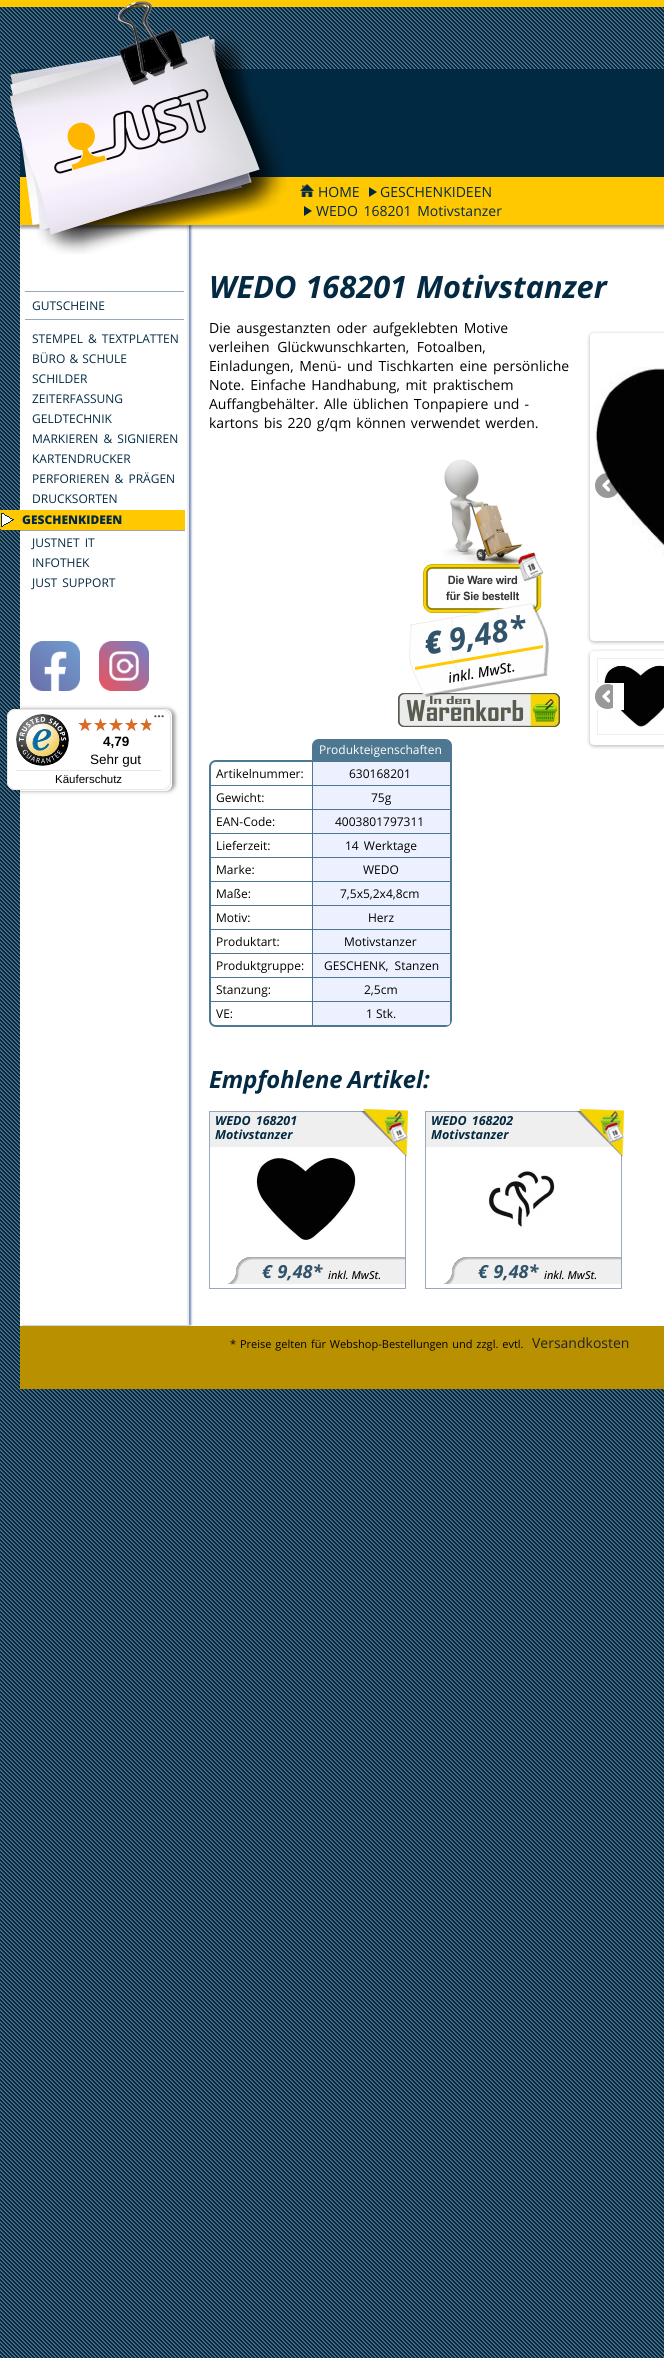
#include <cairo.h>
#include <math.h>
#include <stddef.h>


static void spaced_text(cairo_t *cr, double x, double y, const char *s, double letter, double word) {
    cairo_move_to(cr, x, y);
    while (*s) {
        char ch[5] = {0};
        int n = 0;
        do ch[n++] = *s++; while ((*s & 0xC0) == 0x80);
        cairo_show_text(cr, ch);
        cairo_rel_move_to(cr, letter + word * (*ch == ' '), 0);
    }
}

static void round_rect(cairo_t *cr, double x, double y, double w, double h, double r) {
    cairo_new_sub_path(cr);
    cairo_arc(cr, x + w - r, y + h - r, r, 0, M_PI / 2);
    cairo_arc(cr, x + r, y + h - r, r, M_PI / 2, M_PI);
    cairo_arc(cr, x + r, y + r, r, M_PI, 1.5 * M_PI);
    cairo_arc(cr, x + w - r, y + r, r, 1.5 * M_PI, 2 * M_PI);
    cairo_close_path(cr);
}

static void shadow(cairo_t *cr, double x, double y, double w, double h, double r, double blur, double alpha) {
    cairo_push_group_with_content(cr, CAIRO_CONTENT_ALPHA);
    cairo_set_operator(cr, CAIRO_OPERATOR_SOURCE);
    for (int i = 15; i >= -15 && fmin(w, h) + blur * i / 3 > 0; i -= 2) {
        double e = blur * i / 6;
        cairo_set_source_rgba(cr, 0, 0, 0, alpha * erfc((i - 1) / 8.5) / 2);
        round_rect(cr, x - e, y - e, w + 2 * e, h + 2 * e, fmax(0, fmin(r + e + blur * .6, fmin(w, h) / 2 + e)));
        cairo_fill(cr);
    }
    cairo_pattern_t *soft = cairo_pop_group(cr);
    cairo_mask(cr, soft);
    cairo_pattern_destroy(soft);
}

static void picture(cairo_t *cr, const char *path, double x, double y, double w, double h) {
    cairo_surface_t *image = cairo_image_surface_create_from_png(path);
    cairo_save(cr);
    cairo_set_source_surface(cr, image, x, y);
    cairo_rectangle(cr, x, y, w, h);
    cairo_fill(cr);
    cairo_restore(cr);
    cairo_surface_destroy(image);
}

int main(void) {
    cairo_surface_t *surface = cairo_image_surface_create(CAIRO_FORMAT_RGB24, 664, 2358);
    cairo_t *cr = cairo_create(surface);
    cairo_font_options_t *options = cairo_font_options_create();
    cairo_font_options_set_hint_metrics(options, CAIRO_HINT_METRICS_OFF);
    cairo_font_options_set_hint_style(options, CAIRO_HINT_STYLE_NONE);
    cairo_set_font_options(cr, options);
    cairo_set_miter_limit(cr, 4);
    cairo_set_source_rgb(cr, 1, 1, 1);
    cairo_paint(cr);
    picture(cr, "img1.png", 0, 7, 664, 2351);
    cairo_set_source_rgb(cr, 1, 0.784, 0);
    cairo_rectangle(cr, 0, 0, 664, 7);
    cairo_fill(cr);
    cairo_set_source_rgb(cr, 0.004, 0.161, 0.255);
    cairo_rectangle(cr, 20, 69, 644, 108);
    cairo_fill(cr);
    cairo_set_source_rgb(cr, 1, 1, 1);
    cairo_rectangle(cr, 20, 225, 644, 1101);
    cairo_fill(cr);
    cairo_set_source_rgb(cr, 0.725, 0.569, 0);
    cairo_rectangle(cr, 20, 1326, 644, 63);
    cairo_fill(cr);
    cairo_set_source_rgb(cr, 0.459, 0.545, 0.718);
    shadow(cr, 22, 225, 169, 1100, 0, 1, 1);
    cairo_set_source_rgb(cr, 1, 1, 1);
    cairo_rectangle(cr, 20, 225, 167, 1100);
    cairo_fill(cr);
    cairo_set_source_rgb(cr, 0.922, 0.922, 0.922);
    cairo_rectangle(cr, 187, 225, 2, 1100);
    cairo_fill(cr);
    cairo_set_source_rgb(cr, 0, 0, 0);
    shadow(cr, 20, 180, 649, 48, 0, 1.5, 0.4);
    cairo_set_source_rgb(cr, 1, 0.784, 0);
    cairo_rectangle(cr, 20, 177, 644, 48);
    cairo_fill(cr);
    picture(cr, "img2.png", 10, 1, 277, 253);
    picture(cr, "img3.png", 300, 184, 14, 13);
    cairo_select_font_face(cr, "Open Sans", CAIRO_FONT_SLANT_NORMAL, CAIRO_FONT_WEIGHT_NORMAL);
    cairo_set_font_size(cr, 14);
    cairo_set_source_rgb(cr, 0.012, 0.165, 0.259);
    cairo_move_to(cr, 318, 197);
    cairo_show_text(cr, "HOME");
    picture(cr, "img4.png", 369, 187, 8, 10);
    cairo_move_to(cr, 380, 197);
    cairo_show_text(cr, "GESCHENKIDEEN");
    picture(cr, "img4.png", 304, 206, 8, 10);
    spaced_text(cr, 316, 216, "WEDO 168201 Motivstanzer", 0, 2);
    cairo_set_source_rgb(cr, 0.6, 0.659, 0.749);
    cairo_rectangle(cr, 25, 291, 159, 1);
    cairo_fill(cr);
    cairo_rectangle(cr, 25, 319, 159, 1);
    cairo_fill(cr);
    cairo_set_font_size(cr, 12);
    cairo_set_source_rgb(cr, 0.012, 0.165, 0.259);
    cairo_move_to(cr, 32, 310);
    cairo_show_text(cr, "GUTSCHEINE");
    spaced_text(cr, 32, 343, "STEMPEL & TEXTPLATTEN", 0, 2);
    spaced_text(cr, 32, 363, "BÜRO & SCHULE", 0, 1);
    cairo_move_to(cr, 32, 383);
    cairo_show_text(cr, "SCHILDER");
    cairo_move_to(cr, 32, 403);
    cairo_show_text(cr, "ZEITERFASSUNG");
    cairo_move_to(cr, 32, 423);
    cairo_show_text(cr, "GELDTECHNIK");
    spaced_text(cr, 32, 443, "MARKIEREN & SIGNIEREN", 0, 2);
    cairo_move_to(cr, 32, 463);
    cairo_show_text(cr, "KARTENDRUCKER");
    spaced_text(cr, 32, 483, "PERFORIEREN & PRÄGEN", 0, 2);
    cairo_move_to(cr, 32, 503);
    cairo_show_text(cr, "DRUCKSORTEN");
    picture(cr, "img5.png", 0, 510, 185, 21);
    cairo_select_font_face(cr, "Open Sans ExtraBold", CAIRO_FONT_SLANT_NORMAL, CAIRO_FONT_WEIGHT_NORMAL);
    cairo_move_to(cr, 22, 524);
    cairo_show_text(cr, "GESCHENKIDEEN");
    cairo_select_font_face(cr, "Open Sans", CAIRO_FONT_SLANT_NORMAL, CAIRO_FONT_WEIGHT_NORMAL);
    spaced_text(cr, 32, 547, "JUSTNET IT", 0, 2);
    cairo_move_to(cr, 32, 567);
    cairo_show_text(cr, "INFOTHEK");
    spaced_text(cr, 32, 587, "JUST SUPPORT", 0, 2);
    picture(cr, "img6.png", 30, 641, 50, 50);
    picture(cr, "img7.png", 99, 641, 50, 50);
    cairo_save(cr);
    cairo_set_fill_rule(cr, CAIRO_FILL_RULE_EVEN_ODD);
    cairo_new_path(cr);
    cairo_move_to(cr, 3, 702);
    cairo_line_to(cr, 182, 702);
    cairo_line_to(cr, 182, 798);
    cairo_line_to(cr, 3, 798);
    cairo_close_path(cr);
    cairo_move_to(cr, 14, 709);
    cairo_line_to(cr, 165, 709);
    cairo_curve_to(cr, 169, 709, 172, 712, 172, 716);
    cairo_line_to(cr, 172, 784);
    cairo_curve_to(cr, 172, 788, 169, 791, 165, 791);
    cairo_line_to(cr, 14, 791);
    cairo_curve_to(cr, 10, 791, 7, 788, 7, 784);
    cairo_line_to(cr, 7, 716);
    cairo_curve_to(cr, 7, 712, 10, 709, 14, 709);
    cairo_close_path(cr);
    cairo_clip(cr);
    cairo_set_source_rgb(cr, 0, 0, 0);
    shadow(cr, 10, 709, 165, 82, 7, 2, 0.4);
    cairo_restore(cr);
    cairo_save(cr);
    round_rect(cr, 7, 709, 165, 82, 7);
    cairo_clip(cr);
    cairo_set_source_rgb(cr, 1, 1, 1);
    round_rect(cr, 7, 709, 164, 81, 8);
    cairo_fill(cr);
    cairo_restore(cr);
    round_rect(cr, 7.5, 709.5, 163, 80, 7.5);
    cairo_set_source_rgb(cr, 0.898, 0.898, 0.898);
    cairo_set_line_width(cr, 1);
    cairo_stroke(cr);
    picture(cr, "img8.png", 154, 715, 10, 3);
    picture(cr, "img9.png", 16, 714, 53, 52);
    picture(cr, "img14.png", 79, 718, 13, 13);
    picture(cr, "img10.png", 78, 718, 14, 13);
    picture(cr, "img14.png", 94, 718, 13, 13);
    picture(cr, "img11.png", 94, 718, 13, 13);
    picture(cr, "img15.png", 109, 718, 14, 13);
    picture(cr, "img12.png", 109, 718, 14, 13);
    picture(cr, "img14.png", 125, 718, 13, 13);
    picture(cr, "img11.png", 125, 718, 13, 13);
    picture(cr, "img14.png", 140, 718, 13, 13);
    picture(cr, "img13.png", 140, 718, 11, 13);
    cairo_select_font_face(cr, "Liberation Sans", CAIRO_FONT_SLANT_NORMAL, CAIRO_FONT_WEIGHT_BOLD);
    cairo_set_font_size(cr, 13.5);
    cairo_set_source_rgb(cr, 0, 0, 0);
    cairo_move_to(cr, 103, 746);
    cairo_show_text(cr, "4,79");
    cairo_select_font_face(cr, "Liberation Sans", CAIRO_FONT_SLANT_NORMAL, CAIRO_FONT_WEIGHT_NORMAL);
    cairo_move_to(cr, 90, 764);
    cairo_show_text(cr, "Sehr gut");
    cairo_set_source_rgb(cr, 0.898, 0.898, 0.898);
    cairo_rectangle(cr, 16, 770, 145, 1);
    cairo_fill(cr);
    cairo_set_font_size(cr, 11.5);
    cairo_set_source_rgb(cr, 0, 0, 0);
    cairo_move_to(cr, 55, 783);
    cairo_show_text(cr, "Käuferschutz");
    cairo_select_font_face(cr, "Open Sans", CAIRO_FONT_SLANT_ITALIC, CAIRO_FONT_WEIGHT_BOLD);
    cairo_set_font_size(cr, 30.75);
    cairo_set_source_rgb(cr, 0.012, 0.165, 0.259);
    spaced_text(cr, 209, 298, "WEDO 168201 Motivstanzer", 0, 1);
    cairo_select_font_face(cr, "Open Sans", CAIRO_FONT_SLANT_NORMAL, CAIRO_FONT_WEIGHT_NORMAL);
    cairo_set_font_size(cr, 14);
    cairo_set_source_rgb(cr, 0, 0, 0);
    spaced_text(cr, 209, 333, "Die ausgestanzten oder aufgeklebten Motive", 0, 2);
    spaced_text(cr, 209, 352, "verleihen Glückwunschkarten, Fotoalben,", 0, 4);
    spaced_text(cr, 209, 371, "Einladungen, Menü- und Tischkarten eine persönliche", 0, 2);
    spaced_text(cr, 209, 390, "Note. Einfache Handhabung, mit praktischem", 0, 2);
    spaced_text(cr, 209, 409, "Auffangbehälter. Alle üblichen Tonpapiere und -", 0, 1.5);
    spaced_text(cr, 209, 428, "kartons bis 220 g/qm können verwendet werden.", 0, 1.5);
    cairo_set_source_rgb(cr, 0, 0, 0);
    shadow(cr, 590, 334, 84, 308, 4, 2, 0.3);
    cairo_set_source_rgb(cr, 1, 1, 1);
    round_rect(cr, 592, 335, 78, 304, 2);
    cairo_fill_preserve(cr);
    cairo_set_line_width(cr, 4);
    cairo_stroke(cr);
    picture(cr, "img16.png", 594, 367, 70, 189);
    picture(cr, "img17.png", 595, 473, 25, 25);
    cairo_set_source_rgb(cr, 0, 0, 0);
    shadow(cr, 590, 652, 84, 94, 4, 2, 0.3);
    cairo_set_source_rgb(cr, 1, 1, 1);
    round_rect(cr, 592, 653, 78, 90, 2);
    cairo_fill_preserve(cr);
    cairo_stroke(cr);
    cairo_rectangle(cr, 597.5, 658.5, 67, 76);
    cairo_set_source_rgb(cr, 0.933, 0.933, 0.933);
    cairo_set_line_width(cr, 1);
    cairo_stroke(cr);
    picture(cr, "img18.png", 604, 665, 60, 62);
    picture(cr, "img19.png", 595, 683, 29, 27);
    picture(cr, "img20.png", 423, 459, 120, 154);
    picture(cr, "img22.png", 398, 693, 162, 34);
    picture(cr, "img21.png", 408, 603, 142, 94);
    cairo_set_source_rgb(cr, 1, 0.784, 0);
    cairo_new_path(cr);
    cairo_move_to(cr, 415, 667);
    cairo_line_to(cr, 543, 645);
    cairo_line_to(cr, 543, 648);
    cairo_line_to(cr, 415, 670);
    cairo_close_path(cr);
    cairo_fill(cr);
    cairo_select_font_face(cr, "Open Sans ExtraBold", CAIRO_FONT_SLANT_ITALIC, CAIRO_FONT_WEIGHT_NORMAL);
    cairo_set_font_size(cr, 30.75);
    cairo_set_source_rgb(cr, 0.196, 0.329, 0.416);
    cairo_save(cr);
    cairo_translate(cr, 426, 655);
    cairo_rotate(cr, -10 * M_PI / 180);
    cairo_move_to(cr, 0, 0);
    cairo_show_text(cr, "€");
    cairo_restore(cr);
    cairo_select_font_face(cr, "Open Sans", CAIRO_FONT_SLANT_ITALIC, CAIRO_FONT_WEIGHT_BOLD);
    cairo_save(cr);
    cairo_translate(cr, 451, 651);
    cairo_rotate(cr, -10 * M_PI / 180);
    cairo_move_to(cr, 0, 0);
    cairo_show_text(cr, "9,48");
    cairo_restore(cr);
    cairo_save(cr);
    cairo_translate(cr, 511, 640);
    cairo_rotate(cr, -10 * M_PI / 180);
    cairo_move_to(cr, 0, 0);
    cairo_show_text(cr, "*");
    cairo_restore(cr);
    cairo_select_font_face(cr, "Open Sans Medium", CAIRO_FONT_SLANT_ITALIC, CAIRO_FONT_WEIGHT_NORMAL);
    cairo_set_font_size(cr, 14);
    cairo_set_source_rgb(cr, 0, 0, 0);
    cairo_save(cr);
    cairo_translate(cr, 449, 683);
    cairo_rotate(cr, -10 * M_PI / 180);
    cairo_move_to(cr, 0, 0);
    cairo_show_text(cr, "inkl. MwSt.");
    cairo_restore(cr);
    cairo_set_source_rgb(cr, 0.306, 0.471, 0.569);
    cairo_new_path(cr);
    cairo_move_to(cr, 319, 740);
    cairo_line_to(cr, 445, 740);
    cairo_curve_to(cr, 448.5, 740, 451, 742.5, 451, 746);
    cairo_line_to(cr, 451, 759);
    cairo_line_to(cr, 313, 759);
    cairo_line_to(cr, 313, 746);
    cairo_curve_to(cr, 313, 742.5, 315.5, 740, 319, 740);
    cairo_close_path(cr);
    cairo_fill_preserve(cr);
    cairo_set_line_width(cr, 2);
    cairo_stroke(cr);
    cairo_select_font_face(cr, "Open Sans", CAIRO_FONT_SLANT_NORMAL, CAIRO_FONT_WEIGHT_NORMAL);
    cairo_set_font_size(cr, 12);
    cairo_set_source_rgb(cr, 1, 1, 1);
    cairo_move_to(cr, 319, 754);
    cairo_show_text(cr, "Produkteigenschaften");
    cairo_set_source_rgb(cr, 0.306, 0.471, 0.569);
    cairo_set_fill_rule(cr, CAIRO_FILL_RULE_EVEN_ODD);
    cairo_new_path(cr);
    cairo_move_to(cr, 216, 760);
    cairo_line_to(cr, 312, 760);
    cairo_line_to(cr, 312, 785);
    cairo_line_to(cr, 209, 785);
    cairo_line_to(cr, 209, 767);
    cairo_curve_to(cr, 209, 763, 212, 760, 216, 760);
    cairo_close_path(cr);
    cairo_move_to(cr, 216, 762);
    cairo_line_to(cr, 312, 762);
    cairo_line_to(cr, 312, 785);
    cairo_line_to(cr, 211, 785);
    cairo_line_to(cr, 211, 767);
    cairo_curve_to(cr, 211, 764, 213, 762, 216, 762);
    cairo_close_path(cr);
    cairo_fill(cr);
    cairo_set_source_rgb(cr, 0, 0, 0);
    cairo_move_to(cr, 216, 778);
    cairo_show_text(cr, "Artikelnummer:");
    cairo_set_source_rgb(cr, 0.922, 0.941, 1);
    cairo_rectangle(cr, 313, 762, 137, 23);
    cairo_fill(cr);
    cairo_set_source_rgb(cr, 0.306, 0.471, 0.569);
    cairo_rectangle(cr, 312, 760, 140, 2);
    cairo_fill(cr);
    cairo_rectangle(cr, 450, 760, 2, 25);
    cairo_fill(cr);
    cairo_rectangle(cr, 312, 760, 1, 25);
    cairo_fill(cr);
    cairo_set_source_rgb(cr, 0, 0, 0);
    cairo_move_to(cr, 349, 778);
    cairo_show_text(cr, "630168201");
    cairo_set_source_rgb(cr, 0.306, 0.471, 0.569);
    cairo_rectangle(cr, 209, 785, 243, 1);
    cairo_fill(cr);
    cairo_rectangle(cr, 209, 785, 2, 24);
    cairo_fill(cr);
    cairo_set_source_rgb(cr, 0, 0, 0);
    cairo_move_to(cr, 216, 802);
    cairo_show_text(cr, "Gewicht:");
    cairo_set_source_rgb(cr, 0.922, 0.941, 1);
    cairo_rectangle(cr, 313, 786, 137, 23);
    cairo_fill(cr);
    cairo_set_source_rgb(cr, 0.306, 0.471, 0.569);
    cairo_rectangle(cr, 450, 785, 2, 24);
    cairo_fill(cr);
    cairo_rectangle(cr, 312, 785, 1, 24);
    cairo_fill(cr);
    cairo_set_source_rgb(cr, 0, 0, 0);
    cairo_move_to(cr, 371, 802);
    cairo_show_text(cr, "75g");
    cairo_set_source_rgb(cr, 0.306, 0.471, 0.569);
    cairo_rectangle(cr, 209, 809, 243, 1);
    cairo_fill(cr);
    cairo_rectangle(cr, 209, 809, 2, 24);
    cairo_fill(cr);
    cairo_set_source_rgb(cr, 0, 0, 0);
    cairo_move_to(cr, 216, 826);
    cairo_show_text(cr, "EAN-Code:");
    cairo_set_source_rgb(cr, 0.922, 0.941, 1);
    cairo_rectangle(cr, 313, 810, 137, 23);
    cairo_fill(cr);
    cairo_set_source_rgb(cr, 0.306, 0.471, 0.569);
    cairo_rectangle(cr, 450, 809, 2, 24);
    cairo_fill(cr);
    cairo_rectangle(cr, 312, 809, 1, 24);
    cairo_fill(cr);
    cairo_set_source_rgb(cr, 0, 0, 0);
    cairo_move_to(cr, 335, 826);
    cairo_show_text(cr, "4003801797311");
    cairo_set_source_rgb(cr, 0.306, 0.471, 0.569);
    cairo_rectangle(cr, 209, 833, 243, 1);
    cairo_fill(cr);
    cairo_rectangle(cr, 209, 833, 2, 24);
    cairo_fill(cr);
    cairo_set_source_rgb(cr, 0, 0, 0);
    cairo_move_to(cr, 216, 850);
    cairo_show_text(cr, "Lieferzeit:");
    cairo_set_source_rgb(cr, 0.922, 0.941, 1);
    cairo_rectangle(cr, 313, 834, 137, 23);
    cairo_fill(cr);
    cairo_set_source_rgb(cr, 0.306, 0.471, 0.569);
    cairo_rectangle(cr, 450, 833, 2, 24);
    cairo_fill(cr);
    cairo_rectangle(cr, 312, 833, 1, 24);
    cairo_fill(cr);
    cairo_set_source_rgb(cr, 0, 0, 0);
    spaced_text(cr, 345, 850, "14 Werktage", 0, 2);
    cairo_set_source_rgb(cr, 0.306, 0.471, 0.569);
    cairo_rectangle(cr, 209, 857, 243, 1);
    cairo_fill(cr);
    cairo_rectangle(cr, 209, 857, 2, 24);
    cairo_fill(cr);
    cairo_set_source_rgb(cr, 0, 0, 0);
    cairo_move_to(cr, 216, 874);
    cairo_show_text(cr, "Marke:");
    cairo_set_source_rgb(cr, 0.922, 0.941, 1);
    cairo_rectangle(cr, 313, 858, 137, 23);
    cairo_fill(cr);
    cairo_set_source_rgb(cr, 0.306, 0.471, 0.569);
    cairo_rectangle(cr, 450, 857, 2, 24);
    cairo_fill(cr);
    cairo_rectangle(cr, 312, 857, 1, 24);
    cairo_fill(cr);
    cairo_set_source_rgb(cr, 0, 0, 0);
    cairo_move_to(cr, 363, 874);
    cairo_show_text(cr, "WEDO");
    cairo_set_source_rgb(cr, 0.306, 0.471, 0.569);
    cairo_rectangle(cr, 209, 881, 243, 1);
    cairo_fill(cr);
    cairo_rectangle(cr, 209, 881, 2, 24);
    cairo_fill(cr);
    cairo_set_source_rgb(cr, 0, 0, 0);
    cairo_move_to(cr, 216, 898);
    cairo_show_text(cr, "Maße:");
    cairo_set_source_rgb(cr, 0.922, 0.941, 1);
    cairo_rectangle(cr, 313, 882, 137, 23);
    cairo_fill(cr);
    cairo_set_source_rgb(cr, 0.306, 0.471, 0.569);
    cairo_rectangle(cr, 450, 881, 2, 24);
    cairo_fill(cr);
    cairo_rectangle(cr, 312, 881, 1, 24);
    cairo_fill(cr);
    cairo_set_source_rgb(cr, 0, 0, 0);
    cairo_move_to(cr, 340, 898);
    cairo_show_text(cr, "7,5x5,2x4,8cm");
    cairo_set_source_rgb(cr, 0.306, 0.471, 0.569);
    cairo_rectangle(cr, 209, 905, 243, 1);
    cairo_fill(cr);
    cairo_rectangle(cr, 209, 905, 2, 24);
    cairo_fill(cr);
    cairo_set_source_rgb(cr, 0, 0, 0);
    cairo_move_to(cr, 216, 922);
    cairo_show_text(cr, "Motiv:");
    cairo_set_source_rgb(cr, 0.922, 0.941, 1);
    cairo_rectangle(cr, 313, 906, 137, 23);
    cairo_fill(cr);
    cairo_set_source_rgb(cr, 0.306, 0.471, 0.569);
    cairo_rectangle(cr, 450, 905, 2, 24);
    cairo_fill(cr);
    cairo_rectangle(cr, 312, 905, 1, 24);
    cairo_fill(cr);
    cairo_set_source_rgb(cr, 0, 0, 0);
    cairo_move_to(cr, 368, 922);
    cairo_show_text(cr, "Herz");
    cairo_set_source_rgb(cr, 0.306, 0.471, 0.569);
    cairo_rectangle(cr, 209, 929, 243, 1);
    cairo_fill(cr);
    cairo_rectangle(cr, 209, 929, 2, 24);
    cairo_fill(cr);
    cairo_set_source_rgb(cr, 0, 0, 0);
    cairo_move_to(cr, 216, 946);
    cairo_show_text(cr, "Produktart:");
    cairo_set_source_rgb(cr, 0.922, 0.941, 1);
    cairo_rectangle(cr, 313, 930, 137, 23);
    cairo_fill(cr);
    cairo_set_source_rgb(cr, 0.306, 0.471, 0.569);
    cairo_rectangle(cr, 450, 929, 2, 24);
    cairo_fill(cr);
    cairo_rectangle(cr, 312, 929, 1, 24);
    cairo_fill(cr);
    cairo_set_source_rgb(cr, 0, 0, 0);
    cairo_move_to(cr, 344, 946);
    cairo_show_text(cr, "Motivstanzer");
    cairo_set_source_rgb(cr, 0.306, 0.471, 0.569);
    cairo_rectangle(cr, 209, 953, 243, 1);
    cairo_fill(cr);
    cairo_rectangle(cr, 209, 953, 2, 24);
    cairo_fill(cr);
    cairo_set_source_rgb(cr, 0, 0, 0);
    cairo_move_to(cr, 216, 970);
    cairo_show_text(cr, "Produktgruppe:");
    cairo_set_source_rgb(cr, 0.922, 0.941, 1);
    cairo_rectangle(cr, 313, 954, 137, 23);
    cairo_fill(cr);
    cairo_set_source_rgb(cr, 0.306, 0.471, 0.569);
    cairo_rectangle(cr, 450, 953, 2, 24);
    cairo_fill(cr);
    cairo_rectangle(cr, 312, 953, 1, 24);
    cairo_fill(cr);
    cairo_set_source_rgb(cr, 0, 0, 0);
    spaced_text(cr, 324, 970, "GESCHENK, Stanzen", 0, 3);
    cairo_set_source_rgb(cr, 0.306, 0.471, 0.569);
    cairo_rectangle(cr, 209, 977, 243, 1);
    cairo_fill(cr);
    cairo_rectangle(cr, 209, 977, 2, 24);
    cairo_fill(cr);
    cairo_set_source_rgb(cr, 0, 0, 0);
    cairo_move_to(cr, 216, 994);
    cairo_show_text(cr, "Stanzung:");
    cairo_set_source_rgb(cr, 0.922, 0.941, 1);
    cairo_rectangle(cr, 313, 978, 137, 23);
    cairo_fill(cr);
    cairo_set_source_rgb(cr, 0.306, 0.471, 0.569);
    cairo_rectangle(cr, 450, 977, 2, 24);
    cairo_fill(cr);
    cairo_rectangle(cr, 312, 977, 1, 24);
    cairo_fill(cr);
    cairo_set_source_rgb(cr, 0, 0, 0);
    cairo_move_to(cr, 364, 994);
    cairo_show_text(cr, "2,5cm");
    cairo_set_source_rgb(cr, 0.306, 0.471, 0.569);
    cairo_new_path(cr);
    cairo_move_to(cr, 209, 1001);
    cairo_line_to(cr, 312, 1001);
    cairo_line_to(cr, 312, 1027);
    cairo_line_to(cr, 216, 1027);
    cairo_curve_to(cr, 212, 1027, 209, 1024, 209, 1020);
    cairo_close_path(cr);
    cairo_move_to(cr, 211, 1002);
    cairo_line_to(cr, 312, 1002);
    cairo_line_to(cr, 312, 1025);
    cairo_line_to(cr, 216, 1025);
    cairo_curve_to(cr, 213, 1025, 211, 1023, 211, 1020);
    cairo_close_path(cr);
    cairo_fill(cr);
    cairo_set_source_rgb(cr, 0, 0, 0);
    cairo_move_to(cr, 216, 1018);
    cairo_show_text(cr, "VE:");
    cairo_set_source_rgb(cr, 0.922, 0.941, 1);
    cairo_new_path(cr);
    cairo_move_to(cr, 313, 1002);
    cairo_line_to(cr, 450, 1002);
    cairo_line_to(cr, 450, 1020);
    cairo_curve_to(cr, 450, 1023, 448, 1025, 445, 1025);
    cairo_line_to(cr, 313, 1025);
    cairo_close_path(cr);
    cairo_fill(cr);
    cairo_new_path(cr);
    cairo_move_to(cr, 312.5, 1001.5);
    cairo_line_to(cr, 451.5, 1001.5);
    cairo_line_to(cr, 451.5, 1020);
    cairo_curve_to(cr, 451.5, 1023.5, 448.5, 1026.5, 445, 1026.5);
    cairo_line_to(cr, 312.5, 1026.5);
    cairo_close_path(cr);
    cairo_set_source_rgb(cr, 0.306, 0.471, 0.569);
    cairo_set_line_width(cr, 1);
    cairo_stroke(cr);
    cairo_rectangle(cr, 450, 1001, 1, 23);
    cairo_fill(cr);
    cairo_rectangle(cr, 312, 1025, 137, 1);
    cairo_fill(cr);
    cairo_set_source_rgb(cr, 0, 0, 0);
    cairo_move_to(cr, 366, 1018);
    cairo_show_text(cr, "1 Stk.");
    cairo_select_font_face(cr, "Open Sans", CAIRO_FONT_SLANT_ITALIC, CAIRO_FONT_WEIGHT_BOLD);
    cairo_set_font_size(cr, 23.75);
    cairo_set_source_rgb(cr, 0.012, 0.165, 0.259);
    spaced_text(cr, 209, 1088, "Empfohlene Artikel:", 0, -1);
    cairo_rectangle(cr, 209.5, 1111.5, 196, 177);
    cairo_set_source_rgb(cr, 0.6, 0.659, 0.749);
    cairo_stroke(cr);
    cairo_set_source_rgb(cr, 0.937, 0.937, 0.937);
    cairo_rectangle(cr, 210, 1112, 188, 35);
    cairo_fill(cr);
    cairo_set_font_size(cr, 12.5);
    cairo_set_source_rgb(cr, 0.012, 0.165, 0.259);
    spaced_text(cr, 215, 1125, "WEDO 168201", 0, 2);
    cairo_move_to(cr, 215, 1139);
    cairo_show_text(cr, "Motivstanzer");
    picture(cr, "img23.png", 256, 1157, 100, 84);
    picture(cr, "img24.png", 228, 1257, 177, 27);
    cairo_set_font_size(cr, 18);
    cairo_set_source_rgb(cr, 0.196, 0.329, 0.416);
    spaced_text(cr, 262, 1278, "€ 9,48*", 0, 1);
    cairo_select_font_face(cr, "Open Sans Medium", CAIRO_FONT_SLANT_ITALIC, CAIRO_FONT_WEIGHT_NORMAL);
    cairo_set_font_size(cr, 11);
    cairo_set_source_rgb(cr, 0, 0, 0);
    cairo_move_to(cr, 328, 1279);
    cairo_show_text(cr, "inkl. MwSt.");
    picture(cr, "img25.png", 361, 1109, 47, 48);
    cairo_rectangle(cr, 425.5, 1111.5, 196, 177);
    cairo_set_source_rgb(cr, 0.6, 0.659, 0.749);
    cairo_stroke(cr);
    cairo_set_source_rgb(cr, 0.937, 0.937, 0.937);
    cairo_rectangle(cr, 426, 1112, 188, 35);
    cairo_fill(cr);
    cairo_select_font_face(cr, "Open Sans", CAIRO_FONT_SLANT_ITALIC, CAIRO_FONT_WEIGHT_BOLD);
    cairo_set_font_size(cr, 12.5);
    cairo_set_source_rgb(cr, 0.012, 0.165, 0.259);
    spaced_text(cr, 431, 1125, "WEDO 168202", 0, 2);
    cairo_move_to(cr, 431, 1139);
    cairo_show_text(cr, "Motivstanzer");
    picture(cr, "img26.png", 488, 1171, 67, 57);
    picture(cr, "img24.png", 444, 1257, 177, 27);
    cairo_set_font_size(cr, 18);
    cairo_set_source_rgb(cr, 0.196, 0.329, 0.416);
    spaced_text(cr, 478, 1278, "€ 9,48*", 0, 1);
    cairo_select_font_face(cr, "Open Sans Medium", CAIRO_FONT_SLANT_ITALIC, CAIRO_FONT_WEIGHT_NORMAL);
    cairo_set_font_size(cr, 11);
    cairo_set_source_rgb(cr, 0, 0, 0);
    cairo_move_to(cr, 544, 1279);
    cairo_show_text(cr, "inkl. MwSt.");
    picture(cr, "img25.png", 577, 1109, 47, 48);
    cairo_select_font_face(cr, "Open Sans", CAIRO_FONT_SLANT_NORMAL, CAIRO_FONT_WEIGHT_NORMAL);
    spaced_text(cr, 230, 1348, "* Preise gelten für Webshop-Bestellungen und zzgl. evtl.", 0, 1);
    cairo_set_font_size(cr, 14);
    cairo_set_source_rgb(cr, 0.133, 0.133, 0.133);
    cairo_move_to(cr, 532, 1348);
    cairo_show_text(cr, "Versandkosten");
    cairo_surface_write_to_png(surface, "page.png");
    cairo_font_options_destroy(options);
    cairo_destroy(cr);
    cairo_surface_destroy(surface);
    return 0;
}
